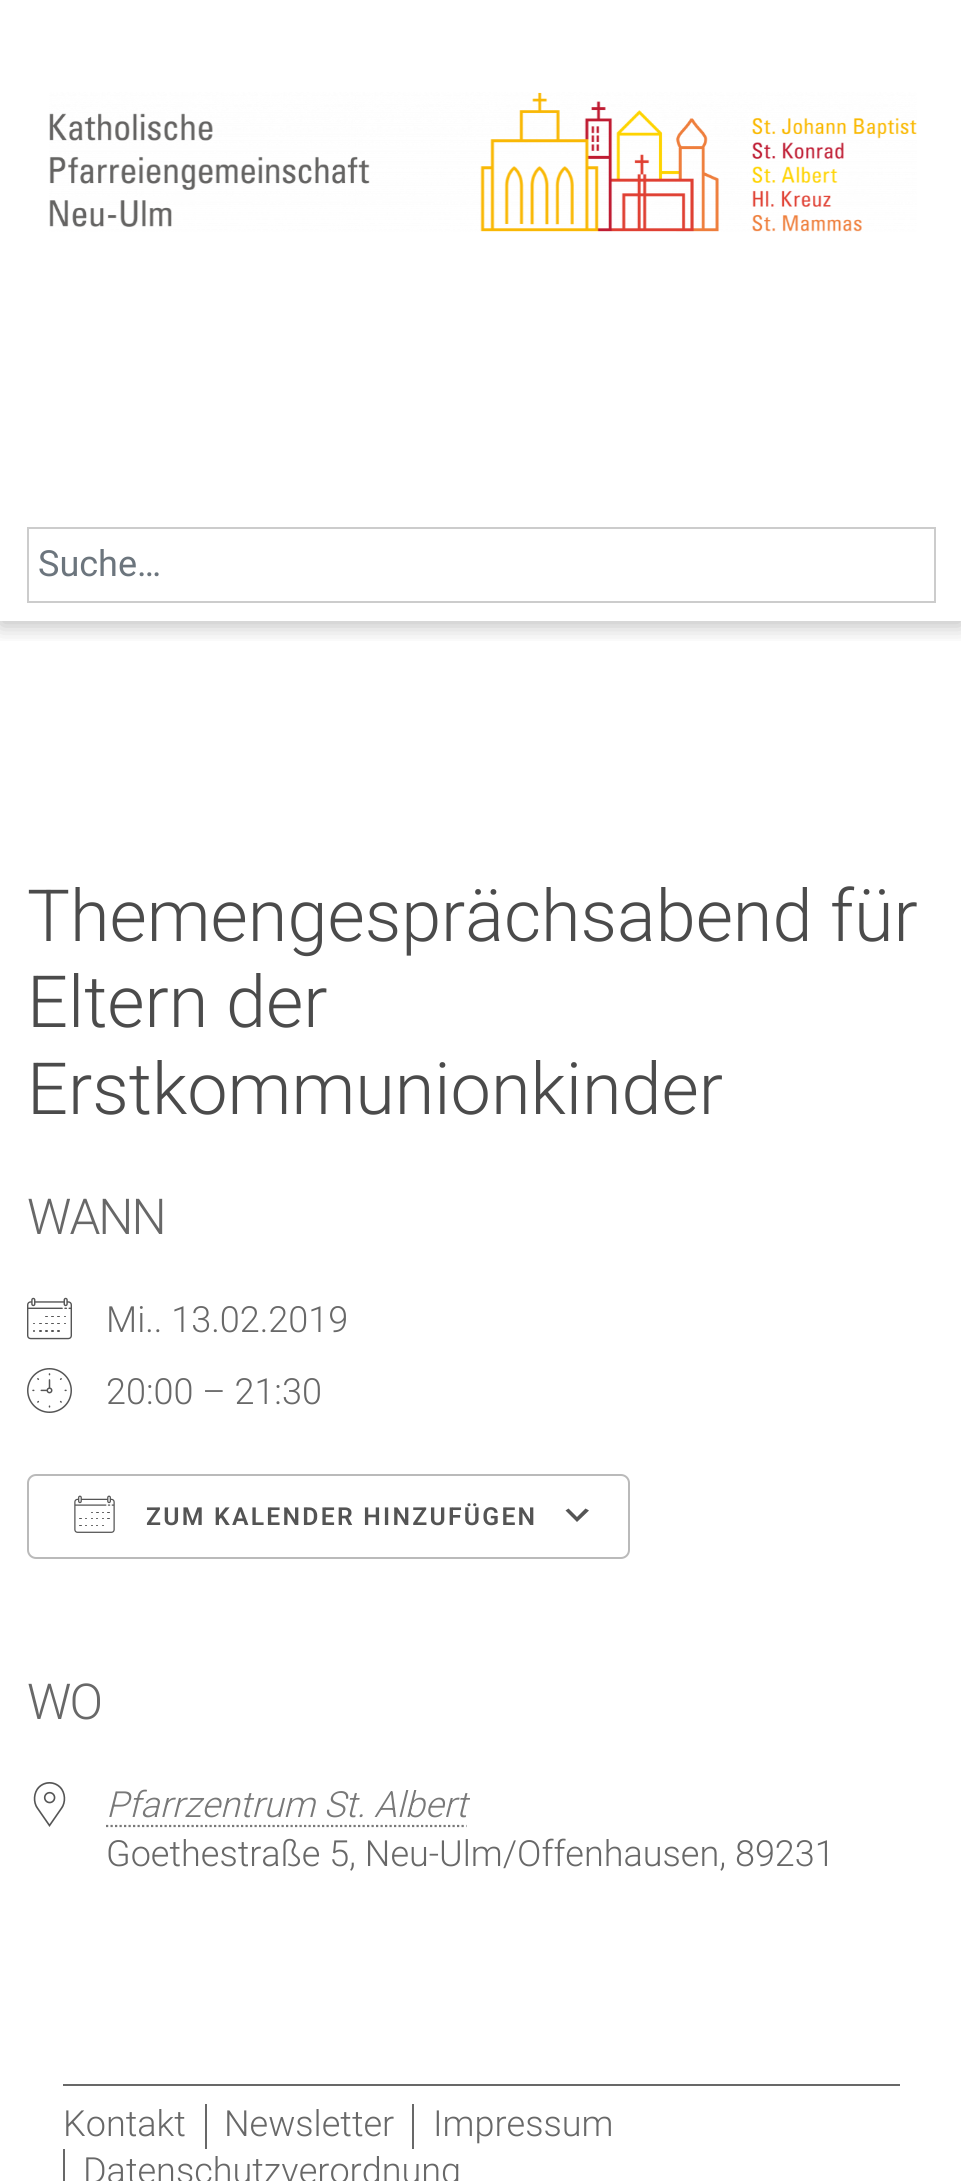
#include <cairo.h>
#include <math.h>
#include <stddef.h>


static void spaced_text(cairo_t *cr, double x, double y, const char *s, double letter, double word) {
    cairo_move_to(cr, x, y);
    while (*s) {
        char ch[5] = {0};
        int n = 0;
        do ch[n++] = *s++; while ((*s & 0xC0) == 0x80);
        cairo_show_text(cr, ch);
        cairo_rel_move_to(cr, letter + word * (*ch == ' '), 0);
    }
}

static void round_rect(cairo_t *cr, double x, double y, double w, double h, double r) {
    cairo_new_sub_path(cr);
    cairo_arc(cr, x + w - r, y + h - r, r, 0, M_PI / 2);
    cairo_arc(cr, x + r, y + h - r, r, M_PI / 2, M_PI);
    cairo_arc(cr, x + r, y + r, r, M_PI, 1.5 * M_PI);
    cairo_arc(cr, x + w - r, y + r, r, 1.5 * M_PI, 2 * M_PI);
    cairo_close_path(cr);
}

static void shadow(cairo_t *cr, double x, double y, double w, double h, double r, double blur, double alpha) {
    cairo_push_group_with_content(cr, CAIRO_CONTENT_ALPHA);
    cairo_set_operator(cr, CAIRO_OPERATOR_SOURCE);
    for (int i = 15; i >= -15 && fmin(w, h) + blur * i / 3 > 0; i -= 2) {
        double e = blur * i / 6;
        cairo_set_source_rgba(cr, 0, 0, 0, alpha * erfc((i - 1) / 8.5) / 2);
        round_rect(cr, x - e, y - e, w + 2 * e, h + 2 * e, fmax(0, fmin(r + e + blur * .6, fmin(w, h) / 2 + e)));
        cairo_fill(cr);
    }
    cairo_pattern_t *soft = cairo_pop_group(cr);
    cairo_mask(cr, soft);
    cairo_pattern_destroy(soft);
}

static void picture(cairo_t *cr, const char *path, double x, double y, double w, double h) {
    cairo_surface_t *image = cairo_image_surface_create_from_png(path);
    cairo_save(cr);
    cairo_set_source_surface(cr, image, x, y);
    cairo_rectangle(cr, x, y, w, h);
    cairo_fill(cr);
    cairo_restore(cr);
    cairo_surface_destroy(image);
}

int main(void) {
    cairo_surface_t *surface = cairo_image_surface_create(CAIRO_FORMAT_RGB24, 961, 2181);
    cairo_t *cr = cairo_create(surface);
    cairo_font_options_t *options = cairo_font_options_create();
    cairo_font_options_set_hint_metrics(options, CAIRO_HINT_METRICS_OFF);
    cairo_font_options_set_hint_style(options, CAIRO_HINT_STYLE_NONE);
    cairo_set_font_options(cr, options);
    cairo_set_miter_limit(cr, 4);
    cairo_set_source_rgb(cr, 1, 1, 1);
    cairo_paint(cr);
    cairo_save(cr);
    cairo_rectangle(cr, 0, 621, 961, 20);
    cairo_clip(cr);
    cairo_set_source_rgb(cr, 0, 0, 0);
    shadow(cr, 0, 5, 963, 621, 0, 11, 0.25);
    cairo_restore(cr);
    picture(cr, "img1.png", 49, 92, 868, 140);
    cairo_rectangle(cr, 28, 528, 907, 74);
    cairo_set_source_rgb(cr, 0.8, 0.8, 0.8);
    cairo_stroke(cr);
    cairo_select_font_face(cr, "Roboto", CAIRO_FONT_SLANT_NORMAL, CAIRO_FONT_WEIGHT_NORMAL);
    cairo_set_font_size(cr, 36);
    cairo_set_source_rgb(cr, 0.424, 0.459, 0.49);
    cairo_move_to(cr, 38, 576);
    cairo_show_text(cr, "Suche…");
    cairo_select_font_face(cr, "Roboto Light", CAIRO_FONT_SLANT_NORMAL, CAIRO_FONT_WEIGHT_NORMAL);
    cairo_set_font_size(cr, 72);
    cairo_set_source_rgb(cr, 0.294, 0.294, 0.294);
    cairo_move_to(cr, 27, 941);
    cairo_show_text(cr, "Themengesprächsabend für");
    cairo_move_to(cr, 27, 1027);
    cairo_show_text(cr, "Eltern der");
    cairo_move_to(cr, 27, 1114);
    cairo_show_text(cr, "Erstkommunionkinder");
    cairo_set_font_size(cr, 49.5);
    cairo_set_source_rgb(cr, 0.408, 0.408, 0.408);
    spaced_text(cr, 27, 1234, "WANN", -2, 0);
    picture(cr, "img2.png", 27, 1297, 45, 43);
    cairo_set_font_size(cr, 36);
    cairo_move_to(cr, 106, 1332);
    cairo_show_text(cr, "Mi.. 13.02.2019");
    picture(cr, "img3.png", 27, 1368, 45, 45);
    cairo_move_to(cr, 106, 1404);
    cairo_show_text(cr, "20:00 – 21:30");
    cairo_set_source_rgb(cr, 0.333, 0.333, 0.333);
    cairo_new_path(cr);
    cairo_move_to(cr, 568.5, 1508.5);
    cairo_line_to(cr, 577, 1517);
    cairo_line_to(cr, 585.5, 1508.5);
    cairo_line_to(cr, 589, 1510.5);
    cairo_line_to(cr, 577, 1522);
    cairo_line_to(cr, 565.5, 1510.5);
    cairo_close_path(cr);
    cairo_fill(cr);
    round_rect(cr, 28, 1475, 601, 83, 8);
    cairo_set_source_rgb(cr, 0.729, 0.729, 0.729);
    cairo_stroke(cr);
    picture(cr, "img4.png", 74, 1495, 41, 38);
    cairo_select_font_face(cr, "Roboto SemiBold", CAIRO_FONT_SLANT_NORMAL, CAIRO_FONT_WEIGHT_NORMAL);
    cairo_set_font_size(cr, 24.75);
    cairo_set_source_rgb(cr, 0.329, 0.329, 0.329);
    spaced_text(cr, 146, 1525, "ZUM KALENDER HINZUFÜGEN", 2.25, 0);
    cairo_select_font_face(cr, "Roboto Light", CAIRO_FONT_SLANT_NORMAL, CAIRO_FONT_WEIGHT_NORMAL);
    cairo_set_font_size(cr, 49.5);
    cairo_set_source_rgb(cr, 0.408, 0.408, 0.408);
    spaced_text(cr, 27, 1719, "WO", -2, 0);
    picture(cr, "img5.png", 33, 1782, 33, 45);
    cairo_select_font_face(cr, "Roboto Light", CAIRO_FONT_SLANT_ITALIC, CAIRO_FONT_WEIGHT_NORMAL);
    cairo_set_font_size(cr, 36);
    cairo_set_source_rgb(cr, 0.471, 0.471, 0.471);
    cairo_move_to(cr, 106, 1817);
    cairo_show_text(cr, "Pfarrzentrum St. Albert");
    cairo_new_path(cr);
    cairo_move_to(cr, 106, 1826);
    cairo_line_to(cr, 466.5, 1826);
    cairo_set_line_width(cr, 2.2);
    cairo_set_dash(cr, (double[]){2.25, 2.25}, 2, 0);
    cairo_stroke(cr);
    cairo_select_font_face(cr, "Roboto Light", CAIRO_FONT_SLANT_NORMAL, CAIRO_FONT_WEIGHT_NORMAL);
    cairo_set_source_rgb(cr, 0.408, 0.408, 0.408);
    cairo_move_to(cr, 106, 1866);
    cairo_show_text(cr, "Goethestraße 5, Neu-Ulm/Offenhausen, 89231");
    cairo_rectangle(cr, 63, 2084, 837, 2);
    cairo_fill(cr);
    cairo_move_to(cr, 63, 2136);
    cairo_show_text(cr, "Kontakt");
    cairo_rectangle(cr, 205, 2104, 2, 45);
    cairo_fill(cr);
    cairo_move_to(cr, 224, 2136);
    cairo_show_text(cr, "Newsletter");
    cairo_rectangle(cr, 412, 2104, 2, 45);
    cairo_fill(cr);
    cairo_move_to(cr, 433, 2136);
    cairo_show_text(cr, "Impressum");
    cairo_rectangle(cr, 63, 2149, 2, 32);
    cairo_fill(cr);
    cairo_move_to(cr, 83, 2183);
    cairo_show_text(cr, "Datenschutzverordnung");
    cairo_surface_write_to_png(surface, "page.png");
    cairo_font_options_destroy(options);
    cairo_destroy(cr);
    cairo_surface_destroy(surface);
    return 0;
}
